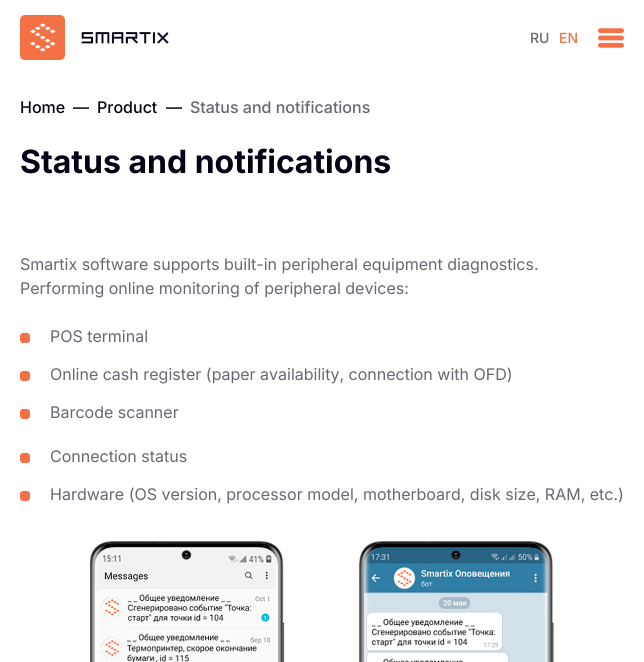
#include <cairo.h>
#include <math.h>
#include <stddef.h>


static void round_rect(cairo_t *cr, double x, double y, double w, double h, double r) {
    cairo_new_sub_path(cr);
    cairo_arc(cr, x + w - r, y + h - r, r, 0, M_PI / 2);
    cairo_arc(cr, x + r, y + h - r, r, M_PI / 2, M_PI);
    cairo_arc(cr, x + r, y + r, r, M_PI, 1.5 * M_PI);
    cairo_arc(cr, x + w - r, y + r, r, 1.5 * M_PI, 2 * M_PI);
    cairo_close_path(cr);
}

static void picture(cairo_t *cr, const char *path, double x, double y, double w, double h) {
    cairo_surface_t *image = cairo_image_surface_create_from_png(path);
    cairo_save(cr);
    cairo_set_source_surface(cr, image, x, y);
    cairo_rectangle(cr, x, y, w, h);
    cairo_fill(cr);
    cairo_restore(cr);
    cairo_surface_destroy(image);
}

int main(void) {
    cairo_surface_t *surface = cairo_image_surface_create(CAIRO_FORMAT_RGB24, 644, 662);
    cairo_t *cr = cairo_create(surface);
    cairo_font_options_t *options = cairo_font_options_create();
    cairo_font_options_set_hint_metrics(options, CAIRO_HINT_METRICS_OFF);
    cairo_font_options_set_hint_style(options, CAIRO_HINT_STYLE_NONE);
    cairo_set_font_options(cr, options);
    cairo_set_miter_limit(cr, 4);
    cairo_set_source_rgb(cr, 1, 1, 1);
    cairo_paint(cr);
    picture(cr, "img1.png", 20, 15, 149, 45);
    cairo_select_font_face(cr, "Inter Medium", CAIRO_FONT_SLANT_NORMAL, CAIRO_FONT_WEIGHT_NORMAL);
    cairo_set_font_size(cr, 14);
    cairo_set_source_rgb(cr, 0.404, 0.408, 0.443);
    cairo_move_to(cr, 530, 43);
    cairo_show_text(cr, "RU");
    cairo_set_source_rgb(cr, 0.957, 0.443, 0.275);
    cairo_move_to(cr, 559, 43);
    cairo_show_text(cr, "EN");
    picture(cr, "img2.png", 598, 28, 26, 20);
    cairo_set_font_size(cr, 16);
    cairo_set_source_rgb(cr, 0.02, 0.008, 0.086);
    cairo_move_to(cr, 20, 113);
    cairo_show_text(cr, "Home");
    cairo_move_to(cr, 73, 113);
    cairo_show_text(cr, "—");
    cairo_move_to(cr, 97, 113);
    cairo_show_text(cr, "Product");
    cairo_move_to(cr, 166, 113);
    cairo_show_text(cr, "—");
    cairo_set_source_rgb(cr, 0.404, 0.408, 0.443);
    cairo_move_to(cr, 190, 113);
    cairo_show_text(cr, "Status and notifications");
    cairo_select_font_face(cr, "Inter", CAIRO_FONT_SLANT_NORMAL, CAIRO_FONT_WEIGHT_BOLD);
    cairo_set_font_size(cr, 32);
    cairo_set_source_rgb(cr, 0.02, 0.008, 0.086);
    cairo_move_to(cr, 20, 173);
    cairo_show_text(cr, "Status and notifications");
    cairo_select_font_face(cr, "Inter", CAIRO_FONT_SLANT_NORMAL, CAIRO_FONT_WEIGHT_NORMAL);
    cairo_set_font_size(cr, 16);
    cairo_set_source_rgb(cr, 0.404, 0.408, 0.443);
    cairo_move_to(cr, 20, 270);
    cairo_show_text(cr, "Smartix software supports built-in peripheral equipment diagnostics.");
    cairo_move_to(cr, 20, 294);
    cairo_show_text(cr, "Performing online monitoring of peripheral devices:");
    cairo_set_source_rgb(cr, 0.957, 0.443, 0.275);
    round_rect(cr, 20, 333, 10, 10, 3);
    cairo_fill(cr);
    cairo_set_source_rgb(cr, 0.404, 0.408, 0.443);
    cairo_move_to(cr, 50, 342);
    cairo_show_text(cr, "POS terminal");
    cairo_set_source_rgb(cr, 0.957, 0.443, 0.275);
    round_rect(cr, 20, 371, 10, 10, 3);
    cairo_fill(cr);
    cairo_set_source_rgb(cr, 0.404, 0.408, 0.443);
    cairo_move_to(cr, 50, 380);
    cairo_show_text(cr, "Online cash register (paper availability, connection with OFD)");
    cairo_set_source_rgb(cr, 0.957, 0.443, 0.275);
    round_rect(cr, 20, 409, 10, 10, 3);
    cairo_fill(cr);
    cairo_set_source_rgb(cr, 0.404, 0.408, 0.443);
    cairo_move_to(cr, 50, 418);
    cairo_show_text(cr, "Barcode scanner");
    cairo_set_source_rgb(cr, 0.957, 0.443, 0.275);
    round_rect(cr, 20, 453, 10, 10, 3);
    cairo_fill(cr);
    cairo_set_source_rgb(cr, 0.404, 0.408, 0.443);
    cairo_move_to(cr, 50, 462);
    cairo_show_text(cr, "Connection status");
    cairo_set_source_rgb(cr, 0.957, 0.443, 0.275);
    round_rect(cr, 20, 491, 10, 10, 3);
    cairo_fill(cr);
    cairo_set_source_rgb(cr, 0.404, 0.408, 0.443);
    cairo_move_to(cr, 50, 500);
    cairo_show_text(cr, "Hardware (OS version, processor model, motherboard, disk size, RAM, etc.)");
    picture(cr, "img3.png", 90, 541, 464, 121);
    cairo_surface_write_to_png(surface, "page.png");
    cairo_font_options_destroy(options);
    cairo_destroy(cr);
    cairo_surface_destroy(surface);
    return 0;
}
